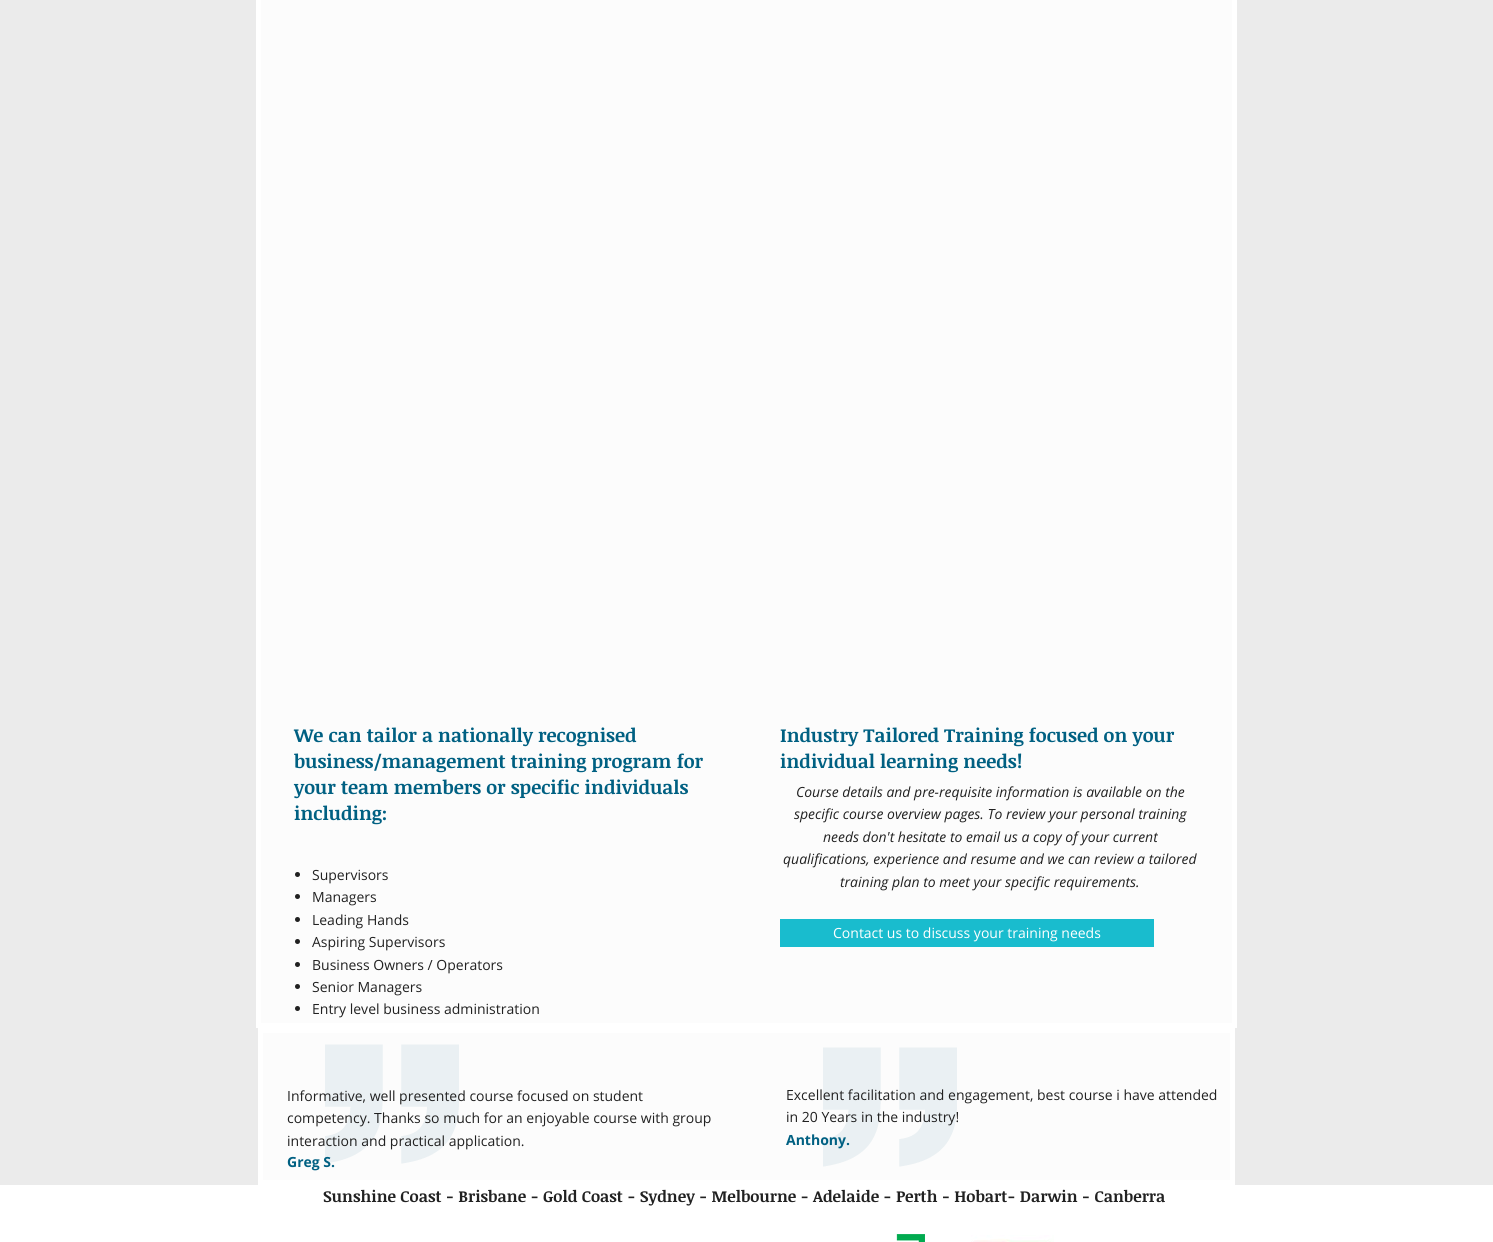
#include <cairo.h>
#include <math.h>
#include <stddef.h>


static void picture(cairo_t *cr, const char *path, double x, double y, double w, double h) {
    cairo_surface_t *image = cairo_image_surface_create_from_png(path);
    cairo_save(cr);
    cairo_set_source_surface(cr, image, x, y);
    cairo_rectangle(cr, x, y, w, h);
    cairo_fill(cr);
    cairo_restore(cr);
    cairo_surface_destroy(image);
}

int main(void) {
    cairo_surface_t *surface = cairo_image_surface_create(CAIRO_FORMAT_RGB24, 1493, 1242);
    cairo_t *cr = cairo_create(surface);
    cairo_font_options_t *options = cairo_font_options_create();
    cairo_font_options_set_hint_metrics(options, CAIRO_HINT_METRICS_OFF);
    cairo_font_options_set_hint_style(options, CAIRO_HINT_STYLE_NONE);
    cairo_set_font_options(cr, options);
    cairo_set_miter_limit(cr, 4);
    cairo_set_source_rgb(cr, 0.918, 0.918, 0.918);
    cairo_paint(cr);
    cairo_set_source_rgb(cr, 0.988, 0.988, 0.988);
    cairo_rectangle(cr, 258.5, -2.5, 976, 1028);
    cairo_fill_preserve(cr);
    cairo_set_source_rgb(cr, 1, 1, 1);
    cairo_set_line_width(cr, 5);
    cairo_stroke(cr);
    cairo_select_font_face(cr, "Noticia Text", CAIRO_FONT_SLANT_NORMAL, CAIRO_FONT_WEIGHT_BOLD);
    cairo_set_font_size(cr, 19);
    cairo_set_source_rgb(cr, 0, 0.376, 0.51);
    cairo_move_to(cr, 294, 742);
    cairo_show_text(cr, "We can tailor a nationally recognised");
    cairo_move_to(cr, 294, 768);
    cairo_show_text(cr, "business/management training program for");
    cairo_move_to(cr, 294, 794);
    cairo_show_text(cr, "your team members or specific individuals");
    cairo_move_to(cr, 294, 820);
    cairo_show_text(cr, "including:");
    cairo_move_to(cr, 780, 742);
    cairo_show_text(cr, "Industry Tailored Training focused on your");
    cairo_move_to(cr, 780, 768);
    cairo_show_text(cr, "individual learning needs!");
    cairo_select_font_face(cr, "Open Sans", CAIRO_FONT_SLANT_ITALIC, CAIRO_FONT_WEIGHT_NORMAL);
    cairo_set_font_size(cr, 14);
    cairo_set_source_rgb(cr, 0.129, 0.129, 0.129);
    cairo_move_to(cr, 796, 797);
    cairo_show_text(cr, "Course details and pre-requisite information is available on the");
    cairo_move_to(cr, 794, 819);
    cairo_show_text(cr, "specific course overview pages. To review your personal training");
    cairo_move_to(cr, 823, 842);
    cairo_show_text(cr, "needs don't hesitate to email us a copy of your current");
    cairo_move_to(cr, 783, 864);
    cairo_show_text(cr, "qualifications, experience and resume and we can review a tailored");
    cairo_move_to(cr, 840, 887);
    cairo_show_text(cr, "training plan to meet your specific requirements.");
    cairo_new_path(cr);
    cairo_arc(cr, 297.5, 874.5, 2.5, 0, 2 * M_PI);
    cairo_fill(cr);
    cairo_select_font_face(cr, "Open Sans", CAIRO_FONT_SLANT_NORMAL, CAIRO_FONT_WEIGHT_NORMAL);
    cairo_move_to(cr, 312, 880);
    cairo_show_text(cr, "Supervisors");
    cairo_new_path(cr);
    cairo_arc(cr, 297.5, 896.5, 2.5, 0, 2 * M_PI);
    cairo_fill(cr);
    cairo_move_to(cr, 312, 902);
    cairo_show_text(cr, "Managers");
    cairo_new_path(cr);
    cairo_arc(cr, 297.5, 919.5, 2.5, 0, 2 * M_PI);
    cairo_fill(cr);
    cairo_move_to(cr, 312, 925);
    cairo_show_text(cr, "Leading Hands");
    cairo_new_path(cr);
    cairo_arc(cr, 297.5, 941.5, 2.5, 0, 2 * M_PI);
    cairo_fill(cr);
    cairo_move_to(cr, 312, 947);
    cairo_show_text(cr, "Aspiring Supervisors");
    cairo_new_path(cr);
    cairo_arc(cr, 297.5, 964.5, 2.5, 0, 2 * M_PI);
    cairo_fill(cr);
    cairo_move_to(cr, 312, 970);
    cairo_show_text(cr, "Business Owners / Operators");
    cairo_new_path(cr);
    cairo_arc(cr, 297.5, 986.5, 2.5, 0, 2 * M_PI);
    cairo_fill(cr);
    cairo_move_to(cr, 312, 992);
    cairo_show_text(cr, "Senior Managers");
    cairo_new_path(cr);
    cairo_arc(cr, 297.5, 1008.5, 2.5, 0, 2 * M_PI);
    cairo_fill(cr);
    cairo_move_to(cr, 312, 1014);
    cairo_show_text(cr, "Entry level business administration");
    cairo_set_source_rgb(cr, 0.098, 0.737, 0.808);
    cairo_rectangle(cr, 780, 919, 374, 28);
    cairo_fill(cr);
    cairo_set_source_rgb(cr, 1, 1, 1);
    cairo_move_to(cr, 833, 938);
    cairo_show_text(cr, "Contact us to discuss your training needs");
    cairo_set_source_rgb(cr, 0.988, 0.988, 0.988);
    cairo_rectangle(cr, 260.5, 1030.5, 972, 152);
    cairo_fill_preserve(cr);
    cairo_set_source_rgb(cr, 1, 1, 1);
    cairo_stroke(cr);
    picture(cr, "img1.png", 325, 1044, 134, 120);
    picture(cr, "img1.png", 823, 1047, 134, 120);
    cairo_set_source_rgb(cr, 0.129, 0.129, 0.129);
    cairo_move_to(cr, 287, 1101);
    cairo_show_text(cr, "Informative, well presented course focused on student");
    cairo_move_to(cr, 287, 1123);
    cairo_show_text(cr, "competency. Thanks so much for an enjoyable course with group");
    cairo_move_to(cr, 287, 1146);
    cairo_show_text(cr, "interaction and practical application.");
    cairo_select_font_face(cr, "Open Sans", CAIRO_FONT_SLANT_NORMAL, CAIRO_FONT_WEIGHT_BOLD);
    cairo_set_source_rgb(cr, 0, 0.376, 0.51);
    cairo_move_to(cr, 287, 1167);
    cairo_show_text(cr, "Greg S.");
    cairo_select_font_face(cr, "Open Sans", CAIRO_FONT_SLANT_NORMAL, CAIRO_FONT_WEIGHT_NORMAL);
    cairo_set_source_rgb(cr, 0.129, 0.129, 0.129);
    cairo_move_to(cr, 786, 1100);
    cairo_show_text(cr, "Excellent facilitation and engagement, best course i have attended");
    cairo_move_to(cr, 786, 1122);
    cairo_show_text(cr, "in 20 Years in the industry!");
    cairo_select_font_face(cr, "Open Sans", CAIRO_FONT_SLANT_NORMAL, CAIRO_FONT_WEIGHT_BOLD);
    cairo_set_source_rgb(cr, 0, 0.376, 0.51);
    cairo_move_to(cr, 786, 1145);
    cairo_show_text(cr, "Anthony.");
    cairo_set_source_rgb(cr, 1, 1, 1);
    cairo_rectangle(cr, 0, 1185, 1493, 57);
    cairo_fill(cr);
    cairo_select_font_face(cr, "Noticia Text", CAIRO_FONT_SLANT_NORMAL, CAIRO_FONT_WEIGHT_BOLD);
    cairo_set_font_size(cr, 16);
    cairo_set_source_rgb(cr, 0.129, 0.129, 0.129);
    cairo_move_to(cr, 323, 1202);
    cairo_show_text(cr, "Sunshine Coast - Brisbane - Gold Coast - Sydney - Melbourne - Adelaide - Perth - Hobart- Darwin - Canberra");
    picture(cr, "img2.png", 896, 1234, 29, 8);
    picture(cr, "img3.png", 971, 1235, 83, 7);
    cairo_surface_write_to_png(surface, "page.png");
    cairo_font_options_destroy(options);
    cairo_destroy(cr);
    cairo_surface_destroy(surface);
    return 0;
}
